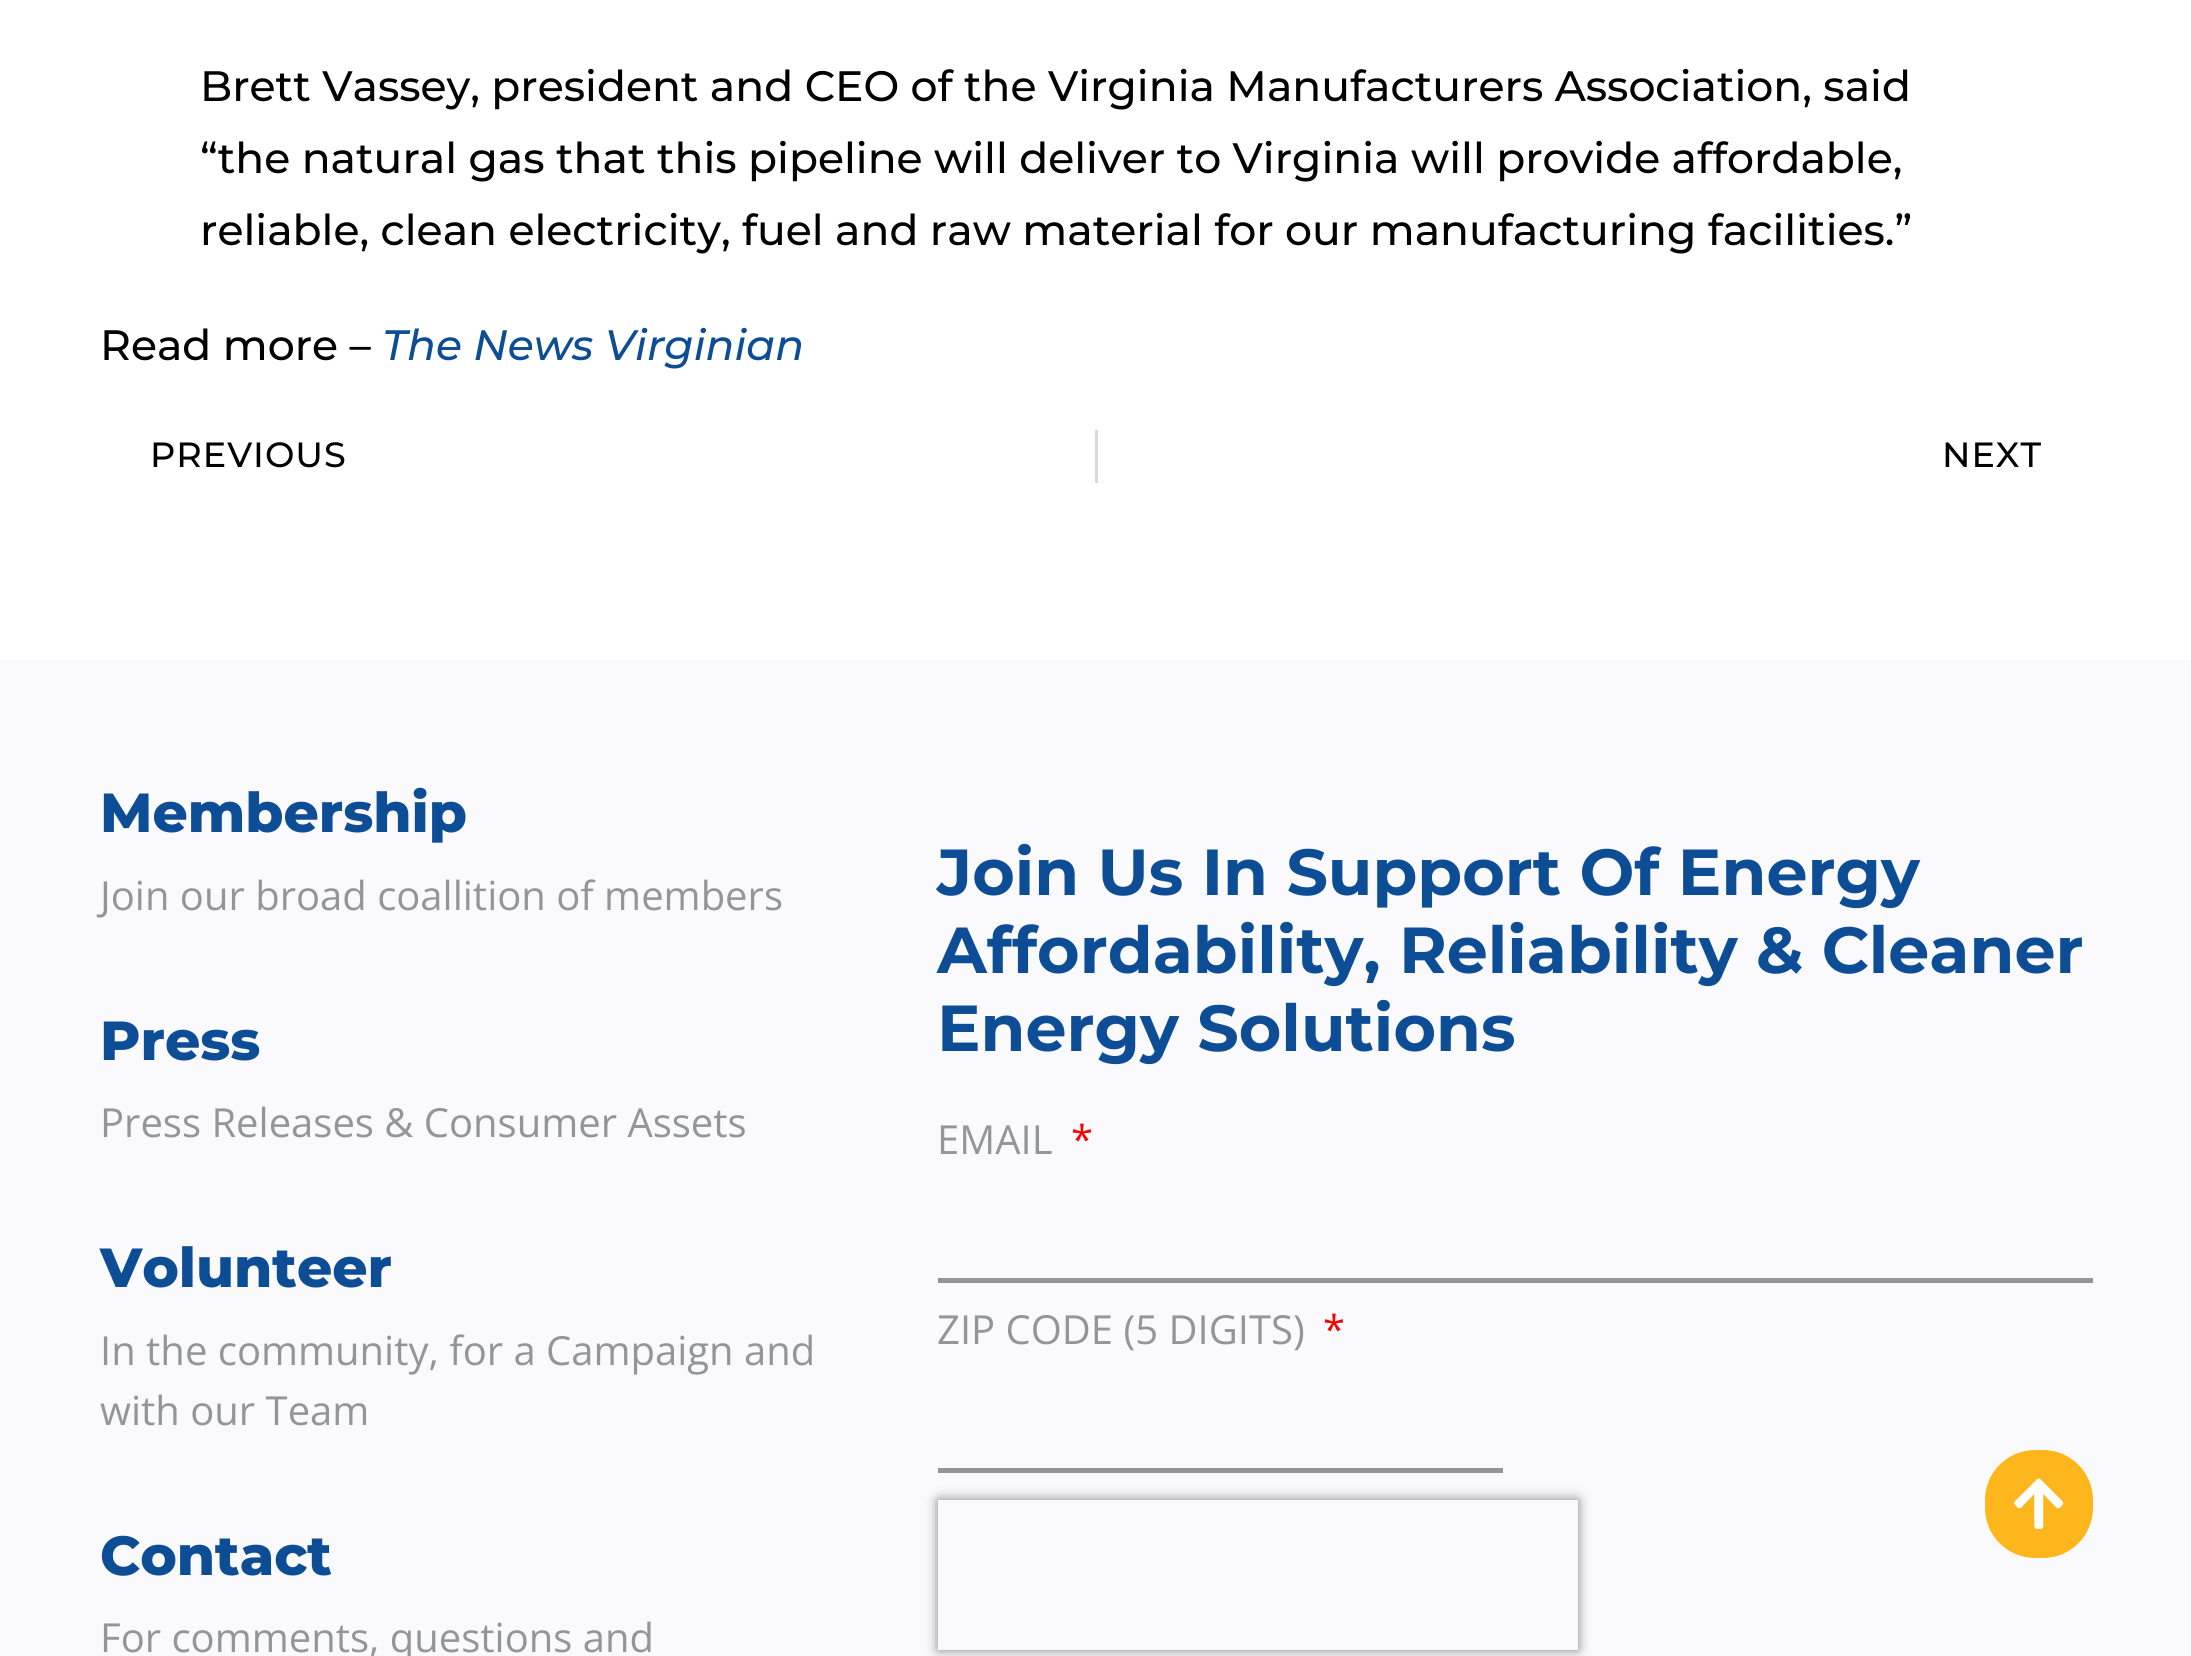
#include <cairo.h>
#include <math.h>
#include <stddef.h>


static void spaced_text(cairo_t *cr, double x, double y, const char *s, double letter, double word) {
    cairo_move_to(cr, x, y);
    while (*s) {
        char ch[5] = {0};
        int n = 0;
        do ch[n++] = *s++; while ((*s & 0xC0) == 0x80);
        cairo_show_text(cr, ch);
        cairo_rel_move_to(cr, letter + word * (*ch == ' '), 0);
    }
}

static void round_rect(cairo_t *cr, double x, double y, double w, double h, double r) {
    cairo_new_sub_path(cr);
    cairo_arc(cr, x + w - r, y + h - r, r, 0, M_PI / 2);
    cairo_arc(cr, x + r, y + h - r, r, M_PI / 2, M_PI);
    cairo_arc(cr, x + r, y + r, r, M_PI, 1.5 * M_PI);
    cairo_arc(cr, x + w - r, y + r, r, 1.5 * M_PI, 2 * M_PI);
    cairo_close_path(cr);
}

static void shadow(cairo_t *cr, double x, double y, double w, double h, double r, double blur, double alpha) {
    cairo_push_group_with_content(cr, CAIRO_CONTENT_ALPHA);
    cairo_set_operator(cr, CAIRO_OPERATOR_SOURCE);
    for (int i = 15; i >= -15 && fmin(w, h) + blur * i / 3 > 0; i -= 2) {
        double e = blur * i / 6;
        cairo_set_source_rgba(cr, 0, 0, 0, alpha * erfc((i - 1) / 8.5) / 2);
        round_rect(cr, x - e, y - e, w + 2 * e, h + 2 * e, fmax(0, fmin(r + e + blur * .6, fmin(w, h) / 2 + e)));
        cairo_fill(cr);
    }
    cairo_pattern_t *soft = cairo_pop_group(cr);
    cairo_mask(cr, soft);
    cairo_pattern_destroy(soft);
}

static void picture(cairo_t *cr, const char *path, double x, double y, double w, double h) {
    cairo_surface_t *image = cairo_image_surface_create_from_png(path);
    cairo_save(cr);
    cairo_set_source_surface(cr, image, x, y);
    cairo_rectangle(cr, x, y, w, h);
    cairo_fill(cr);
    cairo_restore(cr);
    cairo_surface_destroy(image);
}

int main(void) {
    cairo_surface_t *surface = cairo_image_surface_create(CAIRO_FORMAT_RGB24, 2191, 1656);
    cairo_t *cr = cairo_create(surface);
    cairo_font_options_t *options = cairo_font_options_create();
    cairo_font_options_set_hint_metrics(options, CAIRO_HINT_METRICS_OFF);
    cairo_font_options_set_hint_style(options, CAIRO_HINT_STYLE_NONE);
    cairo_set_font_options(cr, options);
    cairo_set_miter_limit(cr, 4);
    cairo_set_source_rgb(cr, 1, 1, 1);
    cairo_paint(cr);
    cairo_select_font_face(cr, "Montserrat Medium", CAIRO_FONT_SLANT_NORMAL, CAIRO_FONT_WEIGHT_NORMAL);
    cairo_set_font_size(cr, 42.5);
    cairo_set_source_rgb(cr, 0, 0, 0);
    cairo_move_to(cr, 200, 101);
    cairo_show_text(cr, "Brett Vassey, president and CEO of the Virginia Manufacturers Association, said");
    cairo_move_to(cr, 200, 173);
    cairo_show_text(cr, "“the natural gas that this pipeline will deliver to Virginia will provide affordable,");
    cairo_move_to(cr, 200, 245);
    cairo_show_text(cr, "reliable, clean electricity, fuel and raw material for our manufacturing facilities.”");
    cairo_move_to(cr, 100, 360);
    cairo_show_text(cr, "Read more –");
    cairo_select_font_face(cr, "Montserrat Medium", CAIRO_FONT_SLANT_ITALIC, CAIRO_FONT_WEIGHT_NORMAL);
    cairo_set_source_rgb(cr, 0.047, 0.302, 0.588);
    cairo_move_to(cr, 382, 360);
    cairo_show_text(cr, "The News Virginian");
    cairo_select_font_face(cr, "Montserrat Medium", CAIRO_FONT_SLANT_NORMAL, CAIRO_FONT_WEIGHT_NORMAL);
    cairo_set_font_size(cr, 35);
    cairo_set_source_rgb(cr, 0, 0, 0);
    spaced_text(cr, 150, 467, "PREVIOUS", 1, 0);
    cairo_set_source_rgb(cr, 0.847, 0.847, 0.847);
    cairo_rectangle(cr, 1095, 430, 3, 53);
    cairo_fill(cr);
    cairo_set_source_rgb(cr, 0, 0, 0);
    spaced_text(cr, 1942, 467, "NEXT", 1, 0);
    cairo_set_source_rgb(cr, 0.98, 0.98, 0.988);
    cairo_rectangle(cr, 0, 660, 2191, 996);
    cairo_fill(cr);
    cairo_select_font_face(cr, "Montserrat ExtraBold", CAIRO_FONT_SLANT_NORMAL, CAIRO_FONT_WEIGHT_NORMAL);
    cairo_set_font_size(cr, 55);
    cairo_set_source_rgb(cr, 0.047, 0.302, 0.588);
    cairo_move_to(cr, 100, 832);
    cairo_show_text(cr, "Membership");
    cairo_select_font_face(cr, "Open Sans", CAIRO_FONT_SLANT_NORMAL, CAIRO_FONT_WEIGHT_NORMAL);
    cairo_set_font_size(cr, 40);
    cairo_set_source_rgb(cr, 0.576, 0.584, 0.596);
    cairo_move_to(cr, 100, 910);
    cairo_show_text(cr, "Join our broad coallition of members");
    cairo_select_font_face(cr, "Montserrat ExtraBold", CAIRO_FONT_SLANT_NORMAL, CAIRO_FONT_WEIGHT_NORMAL);
    cairo_set_font_size(cr, 55);
    cairo_set_source_rgb(cr, 0.047, 0.302, 0.588);
    cairo_move_to(cr, 100, 1060);
    cairo_show_text(cr, "Press");
    cairo_select_font_face(cr, "Open Sans", CAIRO_FONT_SLANT_NORMAL, CAIRO_FONT_WEIGHT_NORMAL);
    cairo_set_font_size(cr, 40);
    cairo_set_source_rgb(cr, 0.576, 0.584, 0.596);
    cairo_move_to(cr, 100, 1137);
    cairo_show_text(cr, "Press Releases & Consumer Assets");
    cairo_select_font_face(cr, "Montserrat ExtraBold", CAIRO_FONT_SLANT_NORMAL, CAIRO_FONT_WEIGHT_NORMAL);
    cairo_set_font_size(cr, 55);
    cairo_set_source_rgb(cr, 0.047, 0.302, 0.588);
    cairo_move_to(cr, 100, 1287);
    cairo_show_text(cr, "Volunteer");
    cairo_select_font_face(cr, "Open Sans", CAIRO_FONT_SLANT_NORMAL, CAIRO_FONT_WEIGHT_NORMAL);
    cairo_set_font_size(cr, 40);
    cairo_set_source_rgb(cr, 0.576, 0.584, 0.596);
    cairo_move_to(cr, 100, 1365);
    cairo_show_text(cr, "In the community, for a Campaign and");
    cairo_move_to(cr, 100, 1425);
    cairo_show_text(cr, "with our Team");
    cairo_select_font_face(cr, "Montserrat ExtraBold", CAIRO_FONT_SLANT_NORMAL, CAIRO_FONT_WEIGHT_NORMAL);
    cairo_set_font_size(cr, 55);
    cairo_set_source_rgb(cr, 0.047, 0.302, 0.588);
    cairo_move_to(cr, 100, 1575);
    cairo_show_text(cr, "Contact");
    cairo_select_font_face(cr, "Open Sans", CAIRO_FONT_SLANT_NORMAL, CAIRO_FONT_WEIGHT_NORMAL);
    cairo_set_font_size(cr, 40);
    cairo_set_source_rgb(cr, 0.576, 0.584, 0.596);
    cairo_move_to(cr, 100, 1652);
    cairo_show_text(cr, "For comments, questions and");
    cairo_select_font_face(cr, "Montserrat", CAIRO_FONT_SLANT_NORMAL, CAIRO_FONT_WEIGHT_BOLD);
    cairo_set_font_size(cr, 65);
    cairo_set_source_rgb(cr, 0.047, 0.302, 0.588);
    cairo_move_to(cr, 937, 895);
    cairo_show_text(cr, "Join Us In Support Of Energy");
    cairo_move_to(cr, 937, 973);
    cairo_show_text(cr, "Affordability, Reliability & Cleaner");
    cairo_move_to(cr, 937, 1051);
    cairo_show_text(cr, "Energy Solutions");
    cairo_select_font_face(cr, "Open Sans", CAIRO_FONT_SLANT_NORMAL, CAIRO_FONT_WEIGHT_NORMAL);
    cairo_set_font_size(cr, 40);
    cairo_set_source_rgb(cr, 0.576, 0.584, 0.596);
    cairo_move_to(cr, 937, 1154);
    cairo_show_text(cr, "EMAIL");
    cairo_set_source_rgb(cr, 1, 0, 0);
    cairo_move_to(cr, 1071, 1154);
    cairo_show_text(cr, "*");
    cairo_set_source_rgb(cr, 0.576, 0.584, 0.596);
    cairo_rectangle(cr, 938, 1278, 1155, 5);
    cairo_fill(cr);
    cairo_move_to(cr, 937, 1344);
    cairo_show_text(cr, "ZIP CODE (5 DIGITS)");
    cairo_set_source_rgb(cr, 1, 0, 0);
    cairo_move_to(cr, 1323, 1344);
    cairo_show_text(cr, "*");
    cairo_set_source_rgb(cr, 0.576, 0.584, 0.596);
    cairo_rectangle(cr, 938, 1468, 565, 5);
    cairo_fill(cr);
    cairo_save(cr);
    cairo_set_fill_rule(cr, CAIRO_FILL_RULE_EVEN_ODD);
    cairo_new_path(cr);
    cairo_move_to(cr, 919, 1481);
    cairo_line_to(cr, 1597, 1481);
    cairo_line_to(cr, 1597, 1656);
    cairo_line_to(cr, 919, 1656);
    cairo_close_path(cr);
    cairo_move_to(cr, 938, 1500);
    cairo_line_to(cr, 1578, 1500);
    cairo_line_to(cr, 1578, 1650);
    cairo_line_to(cr, 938, 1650);
    cairo_close_path(cr);
    cairo_clip(cr);
    cairo_set_source_rgb(cr, 0.502, 0.502, 0.502);
    shadow(cr, 938, 1500, 640, 150, 0, 6, 1);
    cairo_restore(cr);
    cairo_set_source_rgb(cr, 0.992, 0.718, 0.114);
    round_rect(cr, 1985, 1450, 108, 108, 50);
    cairo_fill(cr);
    picture(cr, "img1.png", 2014, 1478, 50, 51);
    cairo_surface_write_to_png(surface, "page.png");
    cairo_font_options_destroy(options);
    cairo_destroy(cr);
    cairo_surface_destroy(surface);
    return 0;
}
